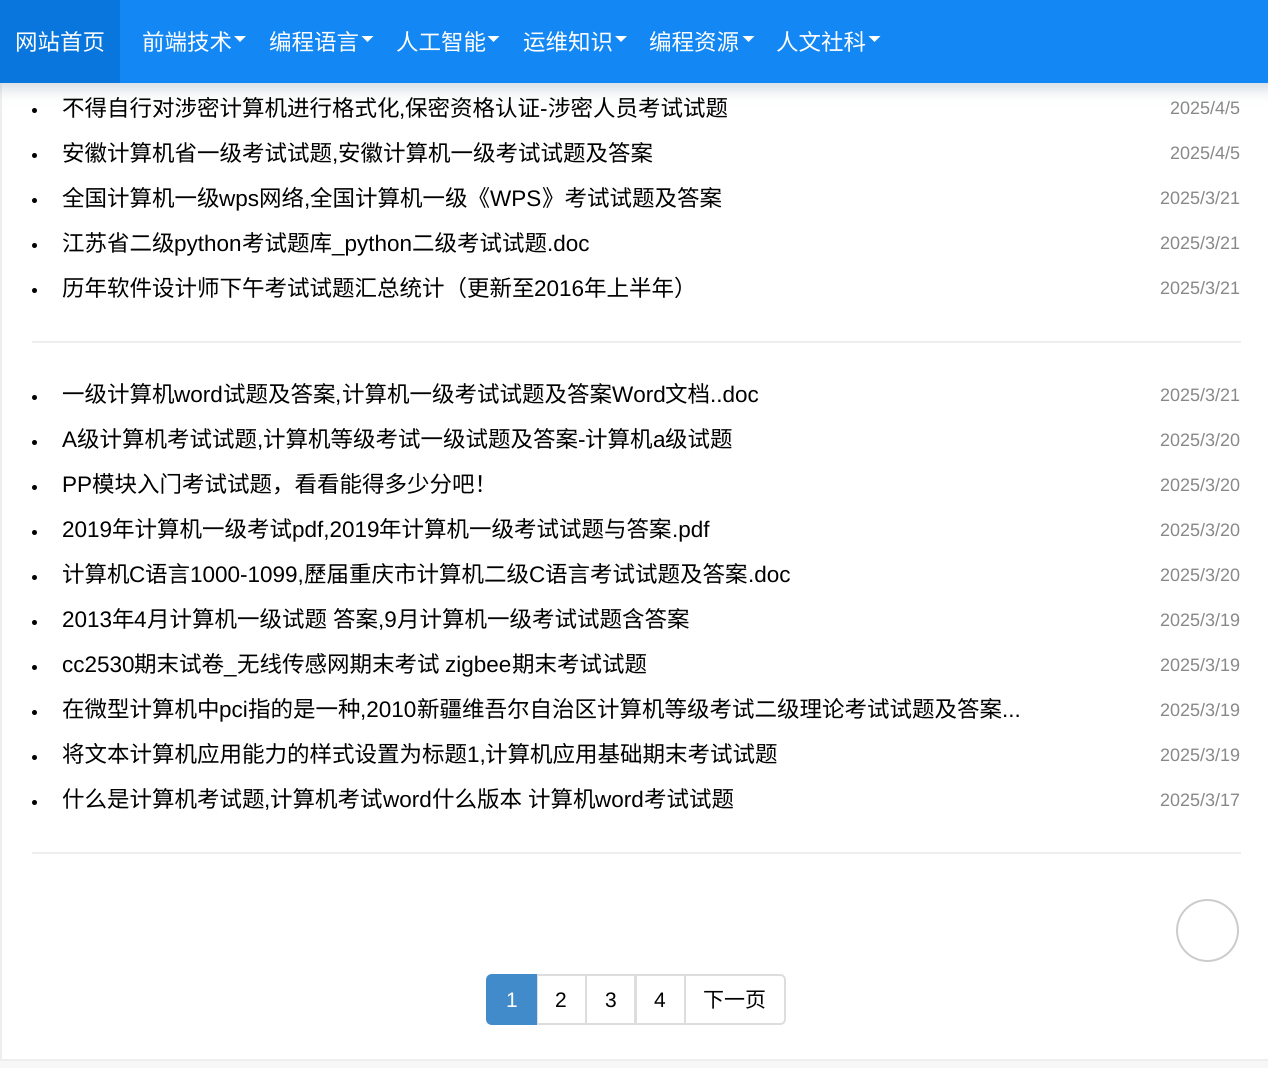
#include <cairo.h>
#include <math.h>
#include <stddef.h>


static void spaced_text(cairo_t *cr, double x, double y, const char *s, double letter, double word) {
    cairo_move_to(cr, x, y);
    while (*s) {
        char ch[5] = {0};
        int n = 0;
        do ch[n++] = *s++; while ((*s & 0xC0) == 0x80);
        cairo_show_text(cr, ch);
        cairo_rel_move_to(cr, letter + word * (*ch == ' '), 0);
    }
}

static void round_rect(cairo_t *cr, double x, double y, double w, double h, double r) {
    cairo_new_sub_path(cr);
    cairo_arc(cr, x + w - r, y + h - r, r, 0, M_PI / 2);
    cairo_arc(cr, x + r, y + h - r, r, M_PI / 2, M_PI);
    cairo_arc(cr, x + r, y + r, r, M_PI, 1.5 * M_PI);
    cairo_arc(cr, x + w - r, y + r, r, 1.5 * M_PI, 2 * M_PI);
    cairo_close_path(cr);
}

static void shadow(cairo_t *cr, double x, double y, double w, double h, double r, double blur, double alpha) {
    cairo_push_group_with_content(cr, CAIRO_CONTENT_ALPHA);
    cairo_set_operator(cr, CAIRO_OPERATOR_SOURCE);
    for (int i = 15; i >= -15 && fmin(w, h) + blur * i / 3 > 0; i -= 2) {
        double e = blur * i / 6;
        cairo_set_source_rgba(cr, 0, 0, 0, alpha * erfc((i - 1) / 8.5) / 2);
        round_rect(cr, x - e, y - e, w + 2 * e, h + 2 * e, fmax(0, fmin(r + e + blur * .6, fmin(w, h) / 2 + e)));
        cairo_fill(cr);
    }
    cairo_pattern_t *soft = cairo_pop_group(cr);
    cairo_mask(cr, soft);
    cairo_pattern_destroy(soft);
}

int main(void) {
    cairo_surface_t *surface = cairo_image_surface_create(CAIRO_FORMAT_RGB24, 1268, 1068);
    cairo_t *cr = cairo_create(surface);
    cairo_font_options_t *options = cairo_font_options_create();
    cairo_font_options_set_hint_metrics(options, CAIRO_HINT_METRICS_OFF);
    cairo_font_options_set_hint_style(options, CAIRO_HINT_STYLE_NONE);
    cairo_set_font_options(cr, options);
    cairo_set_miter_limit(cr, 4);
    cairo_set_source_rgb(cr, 0.965, 0.965, 0.965);
    cairo_paint(cr);
    cairo_set_source_rgb(cr, 1, 1, 1);
    cairo_rectangle(cr, 2, 83, 1266, 976);
    cairo_fill(cr);
    cairo_rectangle(cr, 1, -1, 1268, 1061);
    cairo_set_source_rgb(cr, 0.933, 0.933, 0.933);
    cairo_stroke(cr);
    cairo_set_source_rgb(cr, 0, 0, 0);
    cairo_arc(cr, 34.5, 110.5, 2.5, 0, 2 * M_PI);
    cairo_fill(cr);
    cairo_set_source_rgb(cr, 0.565, 0.631, 0.706);
    shadow(cr, -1, 3, 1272, 86, 0, 7.5, 0.4);
    cairo_set_source_rgb(cr, 0.078, 0.529, 0.957);
    cairo_rectangle(cr, 120, 0, 1148, 83);
    cairo_fill(cr);
    cairo_set_source_rgb(cr, 0.035, 0.463, 0.863);
    cairo_rectangle(cr, 0, 0, 120, 83);
    cairo_fill(cr);
    cairo_select_font_face(cr, "Noto Sans CJK SC", CAIRO_FONT_SLANT_NORMAL, CAIRO_FONT_WEIGHT_NORMAL);
    cairo_set_font_size(cr, 22.5);
    cairo_set_source_rgb(cr, 1, 1, 1);
    cairo_move_to(cr, 15, 50);
    cairo_show_text(cr, "网站首页");
    cairo_move_to(cr, 142, 50);
    cairo_show_text(cr, "前端技术");
    cairo_new_path(cr);
    cairo_move_to(cr, 234, 36);
    cairo_line_to(cr, 246, 36);
    cairo_line_to(cr, 240, 42);
    cairo_close_path(cr);
    cairo_fill(cr);
    cairo_move_to(cr, 269, 50);
    cairo_show_text(cr, "编程语言");
    cairo_new_path(cr);
    cairo_move_to(cr, 361.5, 36);
    cairo_line_to(cr, 373.5, 36);
    cairo_line_to(cr, 367.5, 42);
    cairo_close_path(cr);
    cairo_fill(cr);
    cairo_move_to(cr, 396, 50);
    cairo_show_text(cr, "人工智能");
    cairo_new_path(cr);
    cairo_move_to(cr, 487.5, 36);
    cairo_line_to(cr, 499.5, 36);
    cairo_line_to(cr, 493.5, 42);
    cairo_close_path(cr);
    cairo_fill(cr);
    cairo_move_to(cr, 523, 50);
    cairo_show_text(cr, "运维知识");
    cairo_new_path(cr);
    cairo_move_to(cr, 615, 36);
    cairo_line_to(cr, 627, 36);
    cairo_line_to(cr, 621, 42);
    cairo_close_path(cr);
    cairo_fill(cr);
    cairo_move_to(cr, 649, 50);
    cairo_show_text(cr, "编程资源");
    cairo_new_path(cr);
    cairo_move_to(cr, 742.5, 36);
    cairo_line_to(cr, 754.5, 36);
    cairo_line_to(cr, 748.5, 42);
    cairo_close_path(cr);
    cairo_fill(cr);
    cairo_move_to(cr, 776, 50);
    cairo_show_text(cr, "人文社科");
    cairo_new_path(cr);
    cairo_move_to(cr, 868.5, 36);
    cairo_line_to(cr, 880.5, 36);
    cairo_line_to(cr, 874.5, 42);
    cairo_close_path(cr);
    cairo_fill(cr);
    cairo_set_source_rgb(cr, 0, 0, 0);
    cairo_move_to(cr, 62, 116);
    cairo_show_text(cr, "不得自行对涉密计算机进行格式化");
    cairo_move_to(cr, 405, 116);
    cairo_show_text(cr, "保密资格认证");
    cairo_select_font_face(cr, "Liberation Sans", CAIRO_FONT_SLANT_NORMAL, CAIRO_FONT_WEIGHT_NORMAL);
    cairo_move_to(cr, 540, 116);
    cairo_show_text(cr, "-");
    cairo_select_font_face(cr, "Noto Sans CJK SC", CAIRO_FONT_SLANT_NORMAL, CAIRO_FONT_WEIGHT_NORMAL);
    cairo_move_to(cr, 548, 116);
    cairo_show_text(cr, "涉密人员考试试题");
    cairo_select_font_face(cr, "Liberation Sans", CAIRO_FONT_SLANT_NORMAL, CAIRO_FONT_WEIGHT_NORMAL);
    cairo_set_font_size(cr, 18);
    cairo_set_source_rgb(cr, 0.533, 0.533, 0.533);
    cairo_move_to(cr, 1170, 114);
    cairo_show_text(cr, "2025/4/5");
    cairo_set_font_size(cr, 22.5);
    cairo_set_source_rgb(cr, 0, 0, 0);
    cairo_move_to(cr, 399, 116);
    cairo_show_text(cr, ",");
    cairo_new_path(cr);
    cairo_arc(cr, 34.5, 155.5, 2.5, 0, 2 * M_PI);
    cairo_fill(cr);
    cairo_select_font_face(cr, "Noto Sans CJK SC", CAIRO_FONT_SLANT_NORMAL, CAIRO_FONT_WEIGHT_NORMAL);
    cairo_move_to(cr, 62, 161);
    cairo_show_text(cr, "安徽计算机省一级考试试题");
    cairo_move_to(cr, 338, 161);
    cairo_show_text(cr, "安徽计算机一级考试试题及答案");
    cairo_select_font_face(cr, "Liberation Sans", CAIRO_FONT_SLANT_NORMAL, CAIRO_FONT_WEIGHT_NORMAL);
    cairo_set_font_size(cr, 18);
    cairo_set_source_rgb(cr, 0.533, 0.533, 0.533);
    cairo_move_to(cr, 1170, 159);
    cairo_show_text(cr, "2025/4/5");
    cairo_set_font_size(cr, 22.5);
    cairo_set_source_rgb(cr, 0, 0, 0);
    cairo_move_to(cr, 332, 161);
    cairo_show_text(cr, ",");
    cairo_new_path(cr);
    cairo_arc(cr, 34.5, 200.5, 2.5, 0, 2 * M_PI);
    cairo_fill(cr);
    cairo_select_font_face(cr, "Noto Sans CJK SC", CAIRO_FONT_SLANT_NORMAL, CAIRO_FONT_WEIGHT_NORMAL);
    cairo_move_to(cr, 62, 206);
    cairo_show_text(cr, "全国计算机一级");
    cairo_select_font_face(cr, "Liberation Sans", CAIRO_FONT_SLANT_NORMAL, CAIRO_FONT_WEIGHT_NORMAL);
    cairo_move_to(cr, 219, 206);
    cairo_show_text(cr, "wps");
    cairo_select_font_face(cr, "Noto Sans CJK SC", CAIRO_FONT_SLANT_NORMAL, CAIRO_FONT_WEIGHT_NORMAL);
    cairo_move_to(cr, 259, 206);
    cairo_show_text(cr, "网络");
    cairo_move_to(cr, 310, 206);
    cairo_show_text(cr, "全国计算机一级《");
    cairo_select_font_face(cr, "Liberation Sans", CAIRO_FONT_SLANT_NORMAL, CAIRO_FONT_WEIGHT_NORMAL);
    cairo_move_to(cr, 490, 206);
    cairo_show_text(cr, "WPS");
    cairo_select_font_face(cr, "Noto Sans CJK SC", CAIRO_FONT_SLANT_NORMAL, CAIRO_FONT_WEIGHT_NORMAL);
    cairo_move_to(cr, 542, 206);
    cairo_show_text(cr, "》考试试题及答案");
    cairo_select_font_face(cr, "Liberation Sans", CAIRO_FONT_SLANT_NORMAL, CAIRO_FONT_WEIGHT_NORMAL);
    cairo_set_font_size(cr, 18);
    cairo_set_source_rgb(cr, 0.533, 0.533, 0.533);
    cairo_move_to(cr, 1160, 204);
    cairo_show_text(cr, "2025/3/21");
    cairo_set_font_size(cr, 22.5);
    cairo_set_source_rgb(cr, 0, 0, 0);
    cairo_move_to(cr, 304, 206);
    cairo_show_text(cr, ",");
    cairo_new_path(cr);
    cairo_arc(cr, 34.5, 245.5, 2.5, 0, 2 * M_PI);
    cairo_fill(cr);
    cairo_select_font_face(cr, "Noto Sans CJK SC", CAIRO_FONT_SLANT_NORMAL, CAIRO_FONT_WEIGHT_NORMAL);
    cairo_move_to(cr, 62, 251);
    cairo_show_text(cr, "江苏省二级");
    cairo_select_font_face(cr, "Liberation Sans", CAIRO_FONT_SLANT_NORMAL, CAIRO_FONT_WEIGHT_NORMAL);
    cairo_move_to(cr, 174, 251);
    cairo_show_text(cr, "python");
    cairo_select_font_face(cr, "Noto Sans CJK SC", CAIRO_FONT_SLANT_NORMAL, CAIRO_FONT_WEIGHT_NORMAL);
    cairo_move_to(cr, 242, 251);
    cairo_show_text(cr, "考试题库");
    cairo_select_font_face(cr, "Liberation Sans", CAIRO_FONT_SLANT_NORMAL, CAIRO_FONT_WEIGHT_NORMAL);
    cairo_move_to(cr, 332, 251);
    cairo_show_text(cr, "_python");
    cairo_select_font_face(cr, "Noto Sans CJK SC", CAIRO_FONT_SLANT_NORMAL, CAIRO_FONT_WEIGHT_NORMAL);
    cairo_move_to(cr, 412, 251);
    cairo_show_text(cr, "二级考试试题");
    cairo_select_font_face(cr, "Liberation Sans", CAIRO_FONT_SLANT_NORMAL, CAIRO_FONT_WEIGHT_NORMAL);
    cairo_move_to(cr, 547, 251);
    cairo_show_text(cr, ".doc");
    cairo_set_font_size(cr, 18);
    cairo_set_source_rgb(cr, 0.533, 0.533, 0.533);
    cairo_move_to(cr, 1160, 249);
    cairo_show_text(cr, "2025/3/21");
    cairo_set_source_rgb(cr, 0.933, 0.933, 0.933);
    cairo_rectangle(cr, 32, 341, 1209, 2);
    cairo_fill(cr);
    cairo_set_source_rgb(cr, 0, 0, 0);
    cairo_arc(cr, 34.5, 290.5, 2.5, 0, 2 * M_PI);
    cairo_fill(cr);
    cairo_select_font_face(cr, "Noto Sans CJK SC", CAIRO_FONT_SLANT_NORMAL, CAIRO_FONT_WEIGHT_NORMAL);
    cairo_set_font_size(cr, 22.5);
    cairo_move_to(cr, 62, 296);
    cairo_show_text(cr, "历年软件设计师下午考试试题汇总统计（更新至");
    cairo_select_font_face(cr, "Liberation Sans", CAIRO_FONT_SLANT_NORMAL, CAIRO_FONT_WEIGHT_NORMAL);
    cairo_move_to(cr, 534, 296);
    cairo_show_text(cr, "2016");
    cairo_select_font_face(cr, "Noto Sans CJK SC", CAIRO_FONT_SLANT_NORMAL, CAIRO_FONT_WEIGHT_NORMAL);
    cairo_move_to(cr, 584, 296);
    cairo_show_text(cr, "年上半年）");
    cairo_select_font_face(cr, "Liberation Sans", CAIRO_FONT_SLANT_NORMAL, CAIRO_FONT_WEIGHT_NORMAL);
    cairo_set_font_size(cr, 18);
    cairo_set_source_rgb(cr, 0.533, 0.533, 0.533);
    cairo_move_to(cr, 1160, 294);
    cairo_show_text(cr, "2025/3/21");
    cairo_set_source_rgb(cr, 0, 0, 0);
    cairo_new_path(cr);
    cairo_arc(cr, 34.5, 397.5, 2.5, 0, 2 * M_PI);
    cairo_fill(cr);
    cairo_select_font_face(cr, "Noto Sans CJK SC", CAIRO_FONT_SLANT_NORMAL, CAIRO_FONT_WEIGHT_NORMAL);
    cairo_set_font_size(cr, 22.5);
    cairo_move_to(cr, 62, 402);
    cairo_show_text(cr, "一级计算机");
    cairo_select_font_face(cr, "Liberation Sans", CAIRO_FONT_SLANT_NORMAL, CAIRO_FONT_WEIGHT_NORMAL);
    cairo_move_to(cr, 174, 402);
    cairo_show_text(cr, "word");
    cairo_select_font_face(cr, "Noto Sans CJK SC", CAIRO_FONT_SLANT_NORMAL, CAIRO_FONT_WEIGHT_NORMAL);
    cairo_move_to(cr, 223, 402);
    cairo_show_text(cr, "试题及答案");
    cairo_move_to(cr, 342, 402);
    cairo_show_text(cr, "计算机一级考试试题及答案");
    cairo_select_font_face(cr, "Liberation Sans", CAIRO_FONT_SLANT_NORMAL, CAIRO_FONT_WEIGHT_NORMAL);
    cairo_move_to(cr, 612, 402);
    cairo_show_text(cr, "Word");
    cairo_select_font_face(cr, "Noto Sans CJK SC", CAIRO_FONT_SLANT_NORMAL, CAIRO_FONT_WEIGHT_NORMAL);
    cairo_move_to(cr, 665, 402);
    cairo_show_text(cr, "文档");
    cairo_select_font_face(cr, "Liberation Sans", CAIRO_FONT_SLANT_NORMAL, CAIRO_FONT_WEIGHT_NORMAL);
    cairo_move_to(cr, 710, 402);
    cairo_show_text(cr, "..doc");
    cairo_set_font_size(cr, 18);
    cairo_set_source_rgb(cr, 0.533, 0.533, 0.533);
    cairo_move_to(cr, 1160, 401);
    cairo_show_text(cr, "2025/3/21");
    cairo_set_font_size(cr, 22.5);
    cairo_set_source_rgb(cr, 0, 0, 0);
    cairo_move_to(cr, 335, 402);
    cairo_show_text(cr, ",");
    cairo_new_path(cr);
    cairo_arc(cr, 34.5, 442.5, 2.5, 0, 2 * M_PI);
    cairo_fill(cr);
    cairo_move_to(cr, 62, 447);
    cairo_show_text(cr, "A");
    cairo_select_font_face(cr, "Noto Sans CJK SC", CAIRO_FONT_SLANT_NORMAL, CAIRO_FONT_WEIGHT_NORMAL);
    cairo_move_to(cr, 77, 447);
    cairo_show_text(cr, "级计算机考试试题");
    cairo_move_to(cr, 263, 447);
    cairo_show_text(cr, "计算机等级考试一级试题及答案");
    cairo_select_font_face(cr, "Liberation Sans", CAIRO_FONT_SLANT_NORMAL, CAIRO_FONT_WEIGHT_NORMAL);
    cairo_move_to(cr, 578, 447);
    cairo_show_text(cr, "-");
    cairo_select_font_face(cr, "Noto Sans CJK SC", CAIRO_FONT_SLANT_NORMAL, CAIRO_FONT_WEIGHT_NORMAL);
    cairo_move_to(cr, 585, 447);
    cairo_show_text(cr, "计算机");
    cairo_select_font_face(cr, "Liberation Sans", CAIRO_FONT_SLANT_NORMAL, CAIRO_FONT_WEIGHT_NORMAL);
    cairo_move_to(cr, 653, 447);
    cairo_show_text(cr, "a");
    cairo_select_font_face(cr, "Noto Sans CJK SC", CAIRO_FONT_SLANT_NORMAL, CAIRO_FONT_WEIGHT_NORMAL);
    cairo_move_to(cr, 665, 447);
    cairo_show_text(cr, "级试题");
    cairo_select_font_face(cr, "Liberation Sans", CAIRO_FONT_SLANT_NORMAL, CAIRO_FONT_WEIGHT_NORMAL);
    cairo_set_font_size(cr, 18);
    cairo_set_source_rgb(cr, 0.533, 0.533, 0.533);
    cairo_move_to(cr, 1160, 446);
    cairo_show_text(cr, "2025/3/20");
    cairo_set_font_size(cr, 22.5);
    cairo_set_source_rgb(cr, 0, 0, 0);
    cairo_move_to(cr, 257, 447);
    cairo_show_text(cr, ",");
    cairo_new_path(cr);
    cairo_arc(cr, 34.5, 487.5, 2.5, 0, 2 * M_PI);
    cairo_fill(cr);
    cairo_move_to(cr, 62, 492);
    cairo_show_text(cr, "PP");
    cairo_select_font_face(cr, "Noto Sans CJK SC", CAIRO_FONT_SLANT_NORMAL, CAIRO_FONT_WEIGHT_NORMAL);
    cairo_move_to(cr, 92, 492);
    cairo_show_text(cr, "模块入门考试试题，看看能得多少分吧！");
    cairo_select_font_face(cr, "Liberation Sans", CAIRO_FONT_SLANT_NORMAL, CAIRO_FONT_WEIGHT_NORMAL);
    cairo_set_font_size(cr, 18);
    cairo_set_source_rgb(cr, 0.533, 0.533, 0.533);
    cairo_move_to(cr, 1160, 491);
    cairo_show_text(cr, "2025/3/20");
    cairo_set_source_rgb(cr, 0, 0, 0);
    cairo_new_path(cr);
    cairo_arc(cr, 34.5, 532.5, 2.5, 0, 2 * M_PI);
    cairo_fill(cr);
    cairo_set_font_size(cr, 22.5);
    cairo_move_to(cr, 62, 537);
    cairo_show_text(cr, "2019");
    cairo_select_font_face(cr, "Noto Sans CJK SC", CAIRO_FONT_SLANT_NORMAL, CAIRO_FONT_WEIGHT_NORMAL);
    cairo_move_to(cr, 112, 537);
    cairo_show_text(cr, "年计算机一级考试");
    cairo_select_font_face(cr, "Liberation Sans", CAIRO_FONT_SLANT_NORMAL, CAIRO_FONT_WEIGHT_NORMAL);
    cairo_move_to(cr, 292, 537);
    cairo_show_text(cr, "pdf,2019");
    cairo_select_font_face(cr, "Noto Sans CJK SC", CAIRO_FONT_SLANT_NORMAL, CAIRO_FONT_WEIGHT_NORMAL);
    cairo_move_to(cr, 379, 537);
    cairo_show_text(cr, "年计算机一级考试试题与答案");
    cairo_select_font_face(cr, "Liberation Sans", CAIRO_FONT_SLANT_NORMAL, CAIRO_FONT_WEIGHT_NORMAL);
    cairo_move_to(cr, 672, 537);
    cairo_show_text(cr, ".pdf");
    cairo_set_font_size(cr, 18);
    cairo_set_source_rgb(cr, 0.533, 0.533, 0.533);
    cairo_move_to(cr, 1160, 536);
    cairo_show_text(cr, "2025/3/20");
    cairo_set_source_rgb(cr, 0, 0, 0);
    cairo_new_path(cr);
    cairo_arc(cr, 34.5, 577.5, 2.5, 0, 2 * M_PI);
    cairo_fill(cr);
    cairo_select_font_face(cr, "Noto Sans CJK SC", CAIRO_FONT_SLANT_NORMAL, CAIRO_FONT_WEIGHT_NORMAL);
    cairo_set_font_size(cr, 22.5);
    cairo_move_to(cr, 62, 582);
    cairo_show_text(cr, "计算机");
    cairo_select_font_face(cr, "Liberation Sans", CAIRO_FONT_SLANT_NORMAL, CAIRO_FONT_WEIGHT_NORMAL);
    cairo_move_to(cr, 129, 582);
    cairo_show_text(cr, "C");
    cairo_select_font_face(cr, "Noto Sans CJK SC", CAIRO_FONT_SLANT_NORMAL, CAIRO_FONT_WEIGHT_NORMAL);
    cairo_move_to(cr, 145, 582);
    cairo_show_text(cr, "语言");
    cairo_select_font_face(cr, "Liberation Sans", CAIRO_FONT_SLANT_NORMAL, CAIRO_FONT_WEIGHT_NORMAL);
    cairo_move_to(cr, 190, 582);
    cairo_show_text(cr, "1000-1099,");
    cairo_select_font_face(cr, "Noto Sans CJK SC", CAIRO_FONT_SLANT_NORMAL, CAIRO_FONT_WEIGHT_NORMAL);
    cairo_move_to(cr, 304, 582);
    cairo_show_text(cr, "歷届重庆市计算机二级");
    cairo_select_font_face(cr, "Liberation Sans", CAIRO_FONT_SLANT_NORMAL, CAIRO_FONT_WEIGHT_NORMAL);
    cairo_move_to(cr, 529, 582);
    cairo_show_text(cr, "C");
    cairo_select_font_face(cr, "Noto Sans CJK SC", CAIRO_FONT_SLANT_NORMAL, CAIRO_FONT_WEIGHT_NORMAL);
    cairo_move_to(cr, 545, 582);
    cairo_show_text(cr, "语言考试试题及答案");
    cairo_select_font_face(cr, "Liberation Sans", CAIRO_FONT_SLANT_NORMAL, CAIRO_FONT_WEIGHT_NORMAL);
    cairo_move_to(cr, 748, 582);
    cairo_show_text(cr, ".doc");
    cairo_set_font_size(cr, 18);
    cairo_set_source_rgb(cr, 0.533, 0.533, 0.533);
    cairo_move_to(cr, 1160, 581);
    cairo_show_text(cr, "2025/3/20");
    cairo_set_source_rgb(cr, 0, 0, 0);
    cairo_new_path(cr);
    cairo_arc(cr, 34.5, 622.5, 2.5, 0, 2 * M_PI);
    cairo_fill(cr);
    cairo_set_font_size(cr, 22.5);
    cairo_move_to(cr, 62, 627);
    cairo_show_text(cr, "2013");
    cairo_select_font_face(cr, "Noto Sans CJK SC", CAIRO_FONT_SLANT_NORMAL, CAIRO_FONT_WEIGHT_NORMAL);
    cairo_move_to(cr, 112, 627);
    cairo_show_text(cr, "年");
    cairo_select_font_face(cr, "Liberation Sans", CAIRO_FONT_SLANT_NORMAL, CAIRO_FONT_WEIGHT_NORMAL);
    cairo_move_to(cr, 134, 627);
    cairo_show_text(cr, "4");
    cairo_select_font_face(cr, "Noto Sans CJK SC", CAIRO_FONT_SLANT_NORMAL, CAIRO_FONT_WEIGHT_NORMAL);
    spaced_text(cr, 147, 627, "月计算机一级试题 答案", 0, 1);
    cairo_select_font_face(cr, "Liberation Sans", CAIRO_FONT_SLANT_NORMAL, CAIRO_FONT_WEIGHT_NORMAL);
    cairo_move_to(cr, 378, 627);
    cairo_show_text(cr, ",9");
    cairo_select_font_face(cr, "Noto Sans CJK SC", CAIRO_FONT_SLANT_NORMAL, CAIRO_FONT_WEIGHT_NORMAL);
    cairo_move_to(cr, 397, 627);
    cairo_show_text(cr, "月计算机一级考试试题含答案");
    cairo_select_font_face(cr, "Liberation Sans", CAIRO_FONT_SLANT_NORMAL, CAIRO_FONT_WEIGHT_NORMAL);
    cairo_set_font_size(cr, 18);
    cairo_set_source_rgb(cr, 0.533, 0.533, 0.533);
    cairo_move_to(cr, 1160, 626);
    cairo_show_text(cr, "2025/3/19");
    cairo_set_source_rgb(cr, 0, 0, 0);
    cairo_new_path(cr);
    cairo_arc(cr, 34.5, 667.5, 2.5, 0, 2 * M_PI);
    cairo_fill(cr);
    cairo_set_font_size(cr, 22.5);
    cairo_move_to(cr, 62, 672);
    cairo_show_text(cr, "cc2530");
    cairo_select_font_face(cr, "Noto Sans CJK SC", CAIRO_FONT_SLANT_NORMAL, CAIRO_FONT_WEIGHT_NORMAL);
    cairo_move_to(cr, 134, 672);
    cairo_show_text(cr, "期末试卷");
    cairo_move_to(cr, 237, 672);
    cairo_show_text(cr, "无线传感网期末考试");
    cairo_select_font_face(cr, "Liberation Sans", CAIRO_FONT_SLANT_NORMAL, CAIRO_FONT_WEIGHT_NORMAL);
    cairo_move_to(cr, 445, 672);
    cairo_show_text(cr, "zigbee");
    cairo_select_font_face(cr, "Noto Sans CJK SC", CAIRO_FONT_SLANT_NORMAL, CAIRO_FONT_WEIGHT_NORMAL);
    cairo_move_to(cr, 512, 672);
    cairo_show_text(cr, "期末考试试题");
    cairo_select_font_face(cr, "Liberation Sans", CAIRO_FONT_SLANT_NORMAL, CAIRO_FONT_WEIGHT_NORMAL);
    cairo_set_font_size(cr, 18);
    cairo_set_source_rgb(cr, 0.533, 0.533, 0.533);
    cairo_move_to(cr, 1160, 671);
    cairo_show_text(cr, "2025/3/19");
    cairo_set_font_size(cr, 22.5);
    cairo_set_source_rgb(cr, 0, 0, 0);
    cairo_move_to(cr, 224, 672);
    cairo_show_text(cr, "_");
    cairo_new_path(cr);
    cairo_arc(cr, 34.5, 712.5, 2.5, 0, 2 * M_PI);
    cairo_fill(cr);
    cairo_select_font_face(cr, "Noto Sans CJK SC", CAIRO_FONT_SLANT_NORMAL, CAIRO_FONT_WEIGHT_NORMAL);
    cairo_move_to(cr, 62, 717);
    cairo_show_text(cr, "在微型计算机中");
    cairo_select_font_face(cr, "Liberation Sans", CAIRO_FONT_SLANT_NORMAL, CAIRO_FONT_WEIGHT_NORMAL);
    cairo_move_to(cr, 219, 717);
    cairo_show_text(cr, "pci");
    cairo_select_font_face(cr, "Noto Sans CJK SC", CAIRO_FONT_SLANT_NORMAL, CAIRO_FONT_WEIGHT_NORMAL);
    cairo_move_to(cr, 248, 717);
    cairo_show_text(cr, "指的是一种");
    cairo_select_font_face(cr, "Liberation Sans", CAIRO_FONT_SLANT_NORMAL, CAIRO_FONT_WEIGHT_NORMAL);
    cairo_move_to(cr, 360, 717);
    cairo_show_text(cr, ",2010");
    cairo_select_font_face(cr, "Noto Sans CJK SC", CAIRO_FONT_SLANT_NORMAL, CAIRO_FONT_WEIGHT_NORMAL);
    cairo_move_to(cr, 417, 717);
    cairo_show_text(cr, "新疆维吾尔自治区计算机等级考试二级理论考试试题及答案");
    cairo_select_font_face(cr, "Liberation Sans", CAIRO_FONT_SLANT_NORMAL, CAIRO_FONT_WEIGHT_NORMAL);
    cairo_set_font_size(cr, 18);
    cairo_set_source_rgb(cr, 0.533, 0.533, 0.533);
    cairo_move_to(cr, 1160, 716);
    cairo_show_text(cr, "2025/3/19");
    cairo_set_font_size(cr, 22.5);
    cairo_set_source_rgb(cr, 0, 0, 0);
    cairo_move_to(cr, 1002, 717);
    cairo_show_text(cr, "...");
    cairo_new_path(cr);
    cairo_arc(cr, 34.5, 757.5, 2.5, 0, 2 * M_PI);
    cairo_fill(cr);
    cairo_select_font_face(cr, "Noto Sans CJK SC", CAIRO_FONT_SLANT_NORMAL, CAIRO_FONT_WEIGHT_NORMAL);
    cairo_move_to(cr, 62, 762);
    cairo_show_text(cr, "将文本计算机应用能力的样式设置为标题");
    cairo_select_font_face(cr, "Liberation Sans", CAIRO_FONT_SLANT_NORMAL, CAIRO_FONT_WEIGHT_NORMAL);
    cairo_move_to(cr, 467, 762);
    cairo_show_text(cr, "1,");
    cairo_select_font_face(cr, "Noto Sans CJK SC", CAIRO_FONT_SLANT_NORMAL, CAIRO_FONT_WEIGHT_NORMAL);
    cairo_move_to(cr, 485, 762);
    cairo_show_text(cr, "计算机应用基础期末考试试题");
    cairo_select_font_face(cr, "Liberation Sans", CAIRO_FONT_SLANT_NORMAL, CAIRO_FONT_WEIGHT_NORMAL);
    cairo_set_font_size(cr, 18);
    cairo_set_source_rgb(cr, 0.533, 0.533, 0.533);
    cairo_move_to(cr, 1160, 761);
    cairo_show_text(cr, "2025/3/19");
    cairo_set_source_rgb(cr, 0.933, 0.933, 0.933);
    cairo_rectangle(cr, 32, 852, 1209, 2);
    cairo_fill(cr);
    cairo_set_source_rgb(cr, 0, 0, 0);
    cairo_arc(cr, 34.5, 802.5, 2.5, 0, 2 * M_PI);
    cairo_fill(cr);
    cairo_select_font_face(cr, "Noto Sans CJK SC", CAIRO_FONT_SLANT_NORMAL, CAIRO_FONT_WEIGHT_NORMAL);
    cairo_set_font_size(cr, 22.5);
    cairo_move_to(cr, 62, 807);
    cairo_show_text(cr, "什么是计算机考试题");
    cairo_move_to(cr, 270, 807);
    cairo_show_text(cr, "计算机考试");
    cairo_select_font_face(cr, "Liberation Sans", CAIRO_FONT_SLANT_NORMAL, CAIRO_FONT_WEIGHT_NORMAL);
    cairo_move_to(cr, 383, 807);
    cairo_show_text(cr, "word");
    cairo_select_font_face(cr, "Noto Sans CJK SC", CAIRO_FONT_SLANT_NORMAL, CAIRO_FONT_WEIGHT_NORMAL);
    spaced_text(cr, 432, 807, "什么版本 计算机", 0, 1);
    cairo_select_font_face(cr, "Liberation Sans", CAIRO_FONT_SLANT_NORMAL, CAIRO_FONT_WEIGHT_NORMAL);
    cairo_move_to(cr, 595, 807);
    cairo_show_text(cr, "word");
    cairo_select_font_face(cr, "Noto Sans CJK SC", CAIRO_FONT_SLANT_NORMAL, CAIRO_FONT_WEIGHT_NORMAL);
    cairo_move_to(cr, 644, 807);
    cairo_show_text(cr, "考试试题");
    cairo_select_font_face(cr, "Liberation Sans", CAIRO_FONT_SLANT_NORMAL, CAIRO_FONT_WEIGHT_NORMAL);
    cairo_set_font_size(cr, 18);
    cairo_set_source_rgb(cr, 0.533, 0.533, 0.533);
    cairo_move_to(cr, 1160, 806);
    cairo_show_text(cr, "2025/3/17");
    cairo_set_font_size(cr, 22.5);
    cairo_set_source_rgb(cr, 0, 0, 0);
    cairo_move_to(cr, 264, 807);
    cairo_show_text(cr, ",");
    cairo_rectangle(cr, 537, 975, 49, 49);
    cairo_set_source_rgb(cr, 0.867, 0.867, 0.867);
    cairo_stroke(cr);
    cairo_set_source_rgb(cr, 0.259, 0.545, 0.792);
    cairo_new_path(cr);
    cairo_move_to(cr, 492, 975);
    cairo_line_to(cr, 536, 975);
    cairo_line_to(cr, 536, 1024);
    cairo_line_to(cr, 492, 1024);
    cairo_curve_to(cr, 489, 1024, 487, 1022, 487, 1019);
    cairo_line_to(cr, 487, 980);
    cairo_curve_to(cr, 487, 977, 489, 975, 492, 975);
    cairo_close_path(cr);
    cairo_fill_preserve(cr);
    cairo_stroke(cr);
    cairo_set_font_size(cr, 21);
    cairo_set_source_rgb(cr, 1, 1, 1);
    cairo_move_to(cr, 506, 1007);
    cairo_show_text(cr, "1");
    cairo_set_source_rgb(cr, 0, 0, 0);
    cairo_move_to(cr, 555, 1007);
    cairo_show_text(cr, "2");
    cairo_rectangle(cr, 586, 975, 49, 49);
    cairo_set_source_rgb(cr, 0.867, 0.867, 0.867);
    cairo_stroke(cr);
    cairo_set_source_rgb(cr, 0, 0, 0);
    cairo_move_to(cr, 605, 1007);
    cairo_show_text(cr, "3");
    cairo_rectangle(cr, 636, 975, 49, 49);
    cairo_set_source_rgb(cr, 0.867, 0.867, 0.867);
    cairo_stroke(cr);
    cairo_set_source_rgb(cr, 0, 0, 0);
    cairo_move_to(cr, 654, 1007);
    cairo_show_text(cr, "4");
    cairo_set_source_rgb(cr, 1, 1, 1);
    cairo_new_path(cr);
    cairo_move_to(cr, 685, 975);
    cairo_line_to(cr, 780, 975);
    cairo_curve_to(cr, 783, 975, 785, 977, 785, 980);
    cairo_line_to(cr, 785, 1019);
    cairo_curve_to(cr, 785, 1022, 783, 1024, 780, 1024);
    cairo_line_to(cr, 685, 1024);
    cairo_close_path(cr);
    cairo_fill_preserve(cr);
    cairo_set_source_rgb(cr, 0.867, 0.867, 0.867);
    cairo_stroke(cr);
    cairo_select_font_face(cr, "Noto Sans CJK SC", CAIRO_FONT_SLANT_NORMAL, CAIRO_FONT_WEIGHT_NORMAL);
    cairo_set_source_rgb(cr, 0, 0, 0);
    cairo_move_to(cr, 703, 1007);
    cairo_show_text(cr, "下一页");
    cairo_new_path(cr);
    cairo_arc(cr, 1207.5, 930.5, 30.5, 0, 2 * M_PI);
    cairo_set_source_rgb(cr, 0.8, 0.8, 0.8);
    cairo_stroke(cr);
    cairo_surface_write_to_png(surface, "page.png");
    cairo_font_options_destroy(options);
    cairo_destroy(cr);
    cairo_surface_destroy(surface);
    return 0;
}
